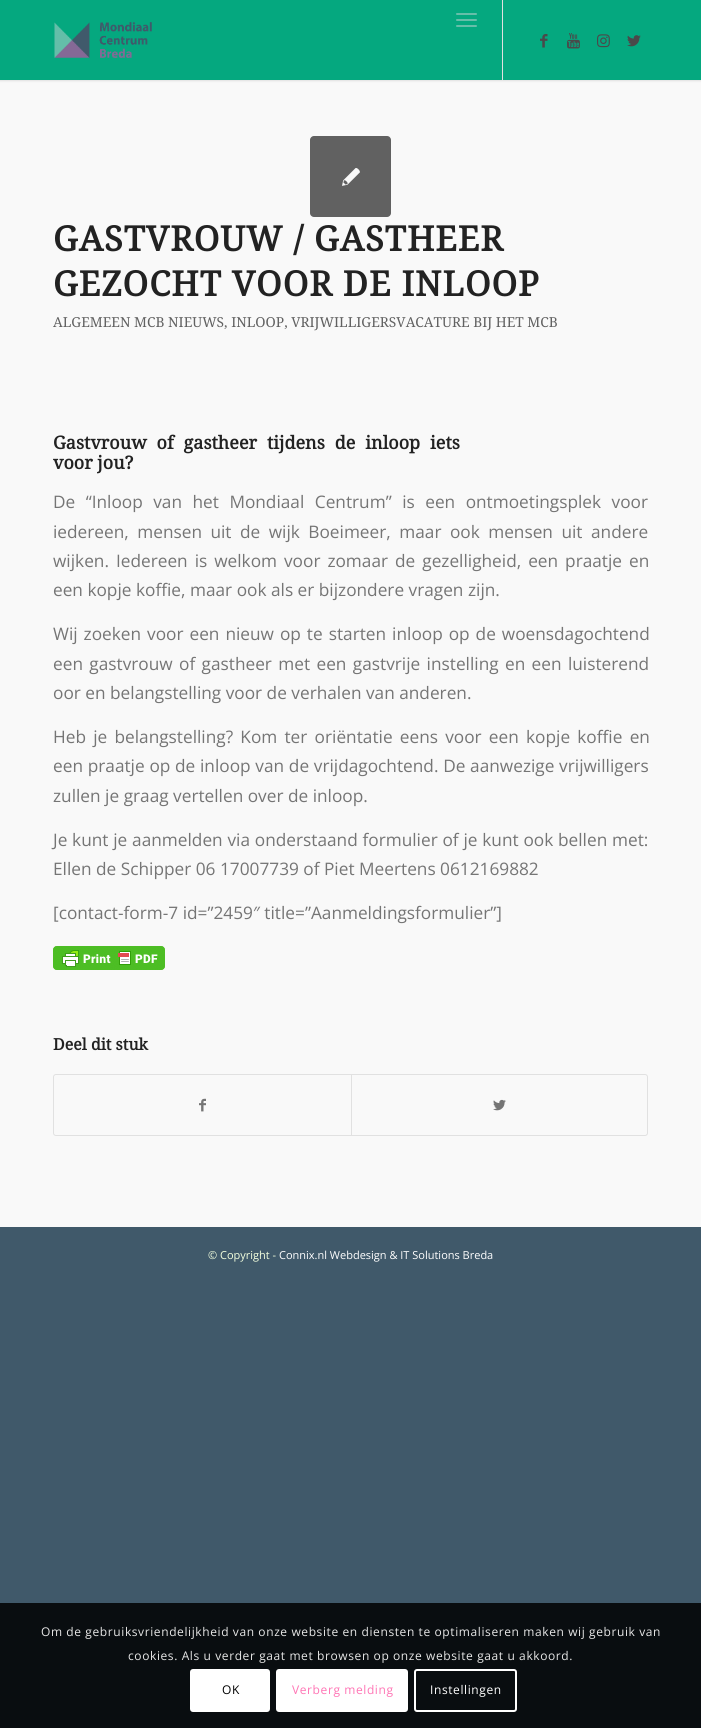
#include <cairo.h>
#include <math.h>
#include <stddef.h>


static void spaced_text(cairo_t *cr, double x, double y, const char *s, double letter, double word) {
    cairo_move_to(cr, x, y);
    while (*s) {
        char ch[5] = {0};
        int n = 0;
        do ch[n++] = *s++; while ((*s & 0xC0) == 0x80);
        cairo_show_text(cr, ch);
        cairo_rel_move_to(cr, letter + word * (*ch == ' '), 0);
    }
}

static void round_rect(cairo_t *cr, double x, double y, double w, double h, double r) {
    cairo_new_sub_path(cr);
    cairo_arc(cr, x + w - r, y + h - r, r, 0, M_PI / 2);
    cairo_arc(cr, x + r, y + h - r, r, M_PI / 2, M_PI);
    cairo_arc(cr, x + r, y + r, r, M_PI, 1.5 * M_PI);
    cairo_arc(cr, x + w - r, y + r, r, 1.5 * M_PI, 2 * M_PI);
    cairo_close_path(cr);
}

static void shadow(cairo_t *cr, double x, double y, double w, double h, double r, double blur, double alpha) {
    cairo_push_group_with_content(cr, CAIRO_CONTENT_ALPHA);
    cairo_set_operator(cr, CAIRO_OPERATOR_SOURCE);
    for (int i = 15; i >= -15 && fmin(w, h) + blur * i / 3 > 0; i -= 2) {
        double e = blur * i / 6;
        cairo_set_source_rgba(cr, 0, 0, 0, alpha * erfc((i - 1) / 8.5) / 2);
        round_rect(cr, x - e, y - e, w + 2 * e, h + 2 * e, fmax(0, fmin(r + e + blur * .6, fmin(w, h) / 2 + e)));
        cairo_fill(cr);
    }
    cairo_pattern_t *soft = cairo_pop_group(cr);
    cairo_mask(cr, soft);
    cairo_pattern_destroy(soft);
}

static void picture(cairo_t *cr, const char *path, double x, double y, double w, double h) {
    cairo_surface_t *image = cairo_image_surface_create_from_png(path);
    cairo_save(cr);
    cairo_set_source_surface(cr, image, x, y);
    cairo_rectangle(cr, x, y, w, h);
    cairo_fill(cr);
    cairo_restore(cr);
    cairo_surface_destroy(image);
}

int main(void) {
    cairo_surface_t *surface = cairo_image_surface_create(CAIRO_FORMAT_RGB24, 701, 1728);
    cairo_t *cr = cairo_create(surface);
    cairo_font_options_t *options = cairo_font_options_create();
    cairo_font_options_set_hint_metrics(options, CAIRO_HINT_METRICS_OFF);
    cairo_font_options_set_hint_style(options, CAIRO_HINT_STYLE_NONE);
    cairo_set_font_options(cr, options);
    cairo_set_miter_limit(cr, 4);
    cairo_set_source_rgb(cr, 0.251, 0.349, 0.416);
    cairo_paint(cr);
    cairo_set_source_rgb(cr, 0.976, 0.976, 0.976);
    cairo_rectangle(cr, 0, 80, 701, 1147);
    cairo_fill(cr);
    cairo_set_source_rgb(cr, 0, 0, 0);
    shadow(cr, -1, -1, 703, 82, 0, 1, 0.1);
    cairo_set_source_rgb(cr, 0.02, 0.659, 0.498);
    cairo_rectangle(cr, 0, 0, 701, 80);
    cairo_fill(cr);
    picture(cr, "img1.png", 54, 22, 98, 36);
    cairo_set_source_rgb(cr, 0.882, 0.882, 0.882);
    cairo_rectangle(cr, 502, 0, 1, 80);
    cairo_fill(cr);
    cairo_set_source_rgb(cr, 0.4, 0.745, 0.663);
    round_rect(cr, 456, 19, 21, 2, 1);
    cairo_fill(cr);
    round_rect(cr, 456, 13, 21, 2, 1);
    cairo_fill(cr);
    round_rect(cr, 456, 25, 21, 2, 1);
    cairo_fill(cr);
    picture(cr, "img2.png", 540, 34, 8, 14);
    picture(cr, "img3.png", 567, 33, 13, 16);
    picture(cr, "img4.png", 597, 34, 13, 14);
    picture(cr, "img5.png", 627, 35, 14, 12);
    cairo_set_source_rgb(cr, 0.38, 0.38, 0.38);
    round_rect(cr, 310, 136, 81, 81, 4);
    cairo_fill(cr);
    picture(cr, "img6.png", 342, 168, 18, 18);
    cairo_select_font_face(cr, "Droid Serif", CAIRO_FONT_SLANT_NORMAL, CAIRO_FONT_WEIGHT_BOLD);
    cairo_set_font_size(cr, 34.5);
    cairo_set_source_rgb(cr, 0.133, 0.133, 0.133);
    spaced_text(cr, 53, 251, "GASTVROUW / GASTHEER", 1, 0);
    spaced_text(cr, 53, 296, "GEZOCHT VOOR DE INLOOP", 1, 0);
    cairo_select_font_face(cr, "Droid Serif", CAIRO_FONT_SLANT_NORMAL, CAIRO_FONT_WEIGHT_NORMAL);
    cairo_set_font_size(cr, 13.8);
    cairo_set_source_rgb(cr, 0.38, 0.38, 0.38);
    cairo_move_to(cr, 53, 327);
    cairo_show_text(cr, "ALGEMEEN MCB NIEUWS, INLOOP, VRIJWILLIGERSVACATURE BIJ HET MCB");
    cairo_select_font_face(cr, "Droid Serif", CAIRO_FONT_SLANT_NORMAL, CAIRO_FONT_WEIGHT_BOLD);
    cairo_set_font_size(cr, 18);
    cairo_set_source_rgb(cr, 0.133, 0.133, 0.133);
    spaced_text(cr, 53, 449, "Gastvrouw of gastheer tijdens de inloop iets", 0, 5.25);
    cairo_move_to(cr, 53, 469);
    cairo_show_text(cr, "voor jou?");
    cairo_select_font_face(cr, "Open Sans", CAIRO_FONT_SLANT_NORMAL, CAIRO_FONT_WEIGHT_NORMAL);
    cairo_set_font_size(cr, 17.25);
    cairo_set_source_rgb(cr, 0.459, 0.459, 0.459);
    spaced_text(cr, 53, 508, "De “Inloop van het Mondiaal Centrum” is een ontmoetingsplek voor", 0, 6);
    spaced_text(cr, 53, 538, "iedereen, mensen uit de wijk Boeimeer, maar ook mensen uit andere", 0, 4);
    spaced_text(cr, 53, 567, "wijken. Iedereen is welkom voor zomaar de gezelligheid, een praatje en", 0, 2.5);
    cairo_move_to(cr, 53, 596);
    cairo_show_text(cr, "een kopje koffie, maar ook als er bijzondere vragen zijn.");
    spaced_text(cr, 53, 640, "Wij zoeken voor een nieuw op te starten inloop op de woensdagochtend", 0, 1.5);
    spaced_text(cr, 53, 670, "een gastvrouw of gastheer met een gastvrije instelling en een luisterend", 0, 1.9);
    cairo_move_to(cr, 53, 699);
    cairo_show_text(cr, "oor en belangstelling voor de verhalen van anderen.");
    spaced_text(cr, 53, 743, "Heb je belangstelling? Kom ter oriëntatie eens voor een kopje koffie en", 0, 2.75);
    spaced_text(cr, 53, 772, "een praatje op de inloop van de vrijdagochtend. De aanwezige vrijwilligers", 0, 0.25);
    cairo_move_to(cr, 53, 802);
    cairo_show_text(cr, "zullen je graag vertellen over de inloop.");
    spaced_text(cr, 53, 846, "Je kunt je aanmelden via onderstaand formulier of je kunt ook bellen met:", 0, 0.3);
    cairo_move_to(cr, 53, 875);
    cairo_show_text(cr, "Ellen de Schipper 06 17007739 of Piet Meertens 0612169882");
    cairo_move_to(cr, 53, 919);
    cairo_show_text(cr, "[contact-form-7 id=”2459″ title=”Aanmeldingsformulier”]");
    picture(cr, "img7.png", 53, 946, 112, 24);
    cairo_select_font_face(cr, "Droid Serif", CAIRO_FONT_SLANT_NORMAL, CAIRO_FONT_WEIGHT_BOLD);
    cairo_set_font_size(cr, 16);
    cairo_set_source_rgb(cr, 0.133, 0.133, 0.133);
    cairo_move_to(cr, 53, 1050);
    cairo_show_text(cr, "Deel dit stuk");
    round_rect(cr, 53.5, 1074.5, 594, 61, 2.5);
    cairo_set_source_rgb(cr, 0.882, 0.882, 0.882);
    cairo_set_line_width(cr, 1);
    cairo_stroke(cr);
    picture(cr, "img8.png", 199, 1098, 7, 14);
    cairo_rectangle(cr, 351, 1075, 1, 60);
    cairo_fill(cr);
    picture(cr, "img9.png", 493, 1099, 13, 12);
    cairo_select_font_face(cr, "Open Sans", CAIRO_FONT_SLANT_NORMAL, CAIRO_FONT_WEIGHT_NORMAL);
    cairo_set_font_size(cr, 11);
    cairo_set_source_rgb(cr, 0.953, 1, 0.871);
    cairo_move_to(cr, 208, 1259);
    cairo_show_text(cr, "© Copyright -");
    cairo_set_source_rgb(cr, 1, 1, 1);
    cairo_move_to(cr, 279, 1259);
    cairo_show_text(cr, "Connix.nl Webdesign & IT Solutions Breda");
    cairo_set_source_rgb(cr, 0.039, 0.051, 0.063);
    cairo_rectangle(cr, 0, 1603, 701, 125);
    cairo_fill(cr);
    cairo_set_font_size(cr, 12);
    cairo_set_source_rgb(cr, 0.906, 0.906, 0.906);
    spaced_text(cr, 41, 1636, "Om de gebruiksvriendelijkheid van onze website en diensten te optimaliseren maken wij gebruik van", 0.6, 0);
    spaced_text(cr, 128, 1660, "cookies. Als u verder gaat met browsen op onze website gaat u akkoord.", 0.6, 0);
    cairo_set_source_rgb(cr, 1, 1, 1);
    round_rect(cr, 190, 1669, 80, 43, 3);
    cairo_fill(cr);
    cairo_set_source_rgb(cr, 0, 0, 0);
    spaced_text(cr, 222, 1694, "OK", 0.6, 0);
    cairo_set_source_rgb(cr, 1, 1, 1);
    round_rect(cr, 277, 1670, 130, 41, 2);
    cairo_fill_preserve(cr);
    cairo_set_line_width(cr, 2);
    cairo_stroke(cr);
    cairo_set_source_rgb(cr, 1, 0.459, 0.71);
    spaced_text(cr, 292, 1694, "Verberg melding", 0.6, 0);
    round_rect(cr, 415, 1670, 101, 41, 2);
    cairo_set_source_rgb(cr, 1, 1, 1);
    cairo_stroke(cr);
    spaced_text(cr, 430, 1694, "Instellingen", 0.6, 0);
    cairo_surface_write_to_png(surface, "page.png");
    cairo_font_options_destroy(options);
    cairo_destroy(cr);
    cairo_surface_destroy(surface);
    return 0;
}
